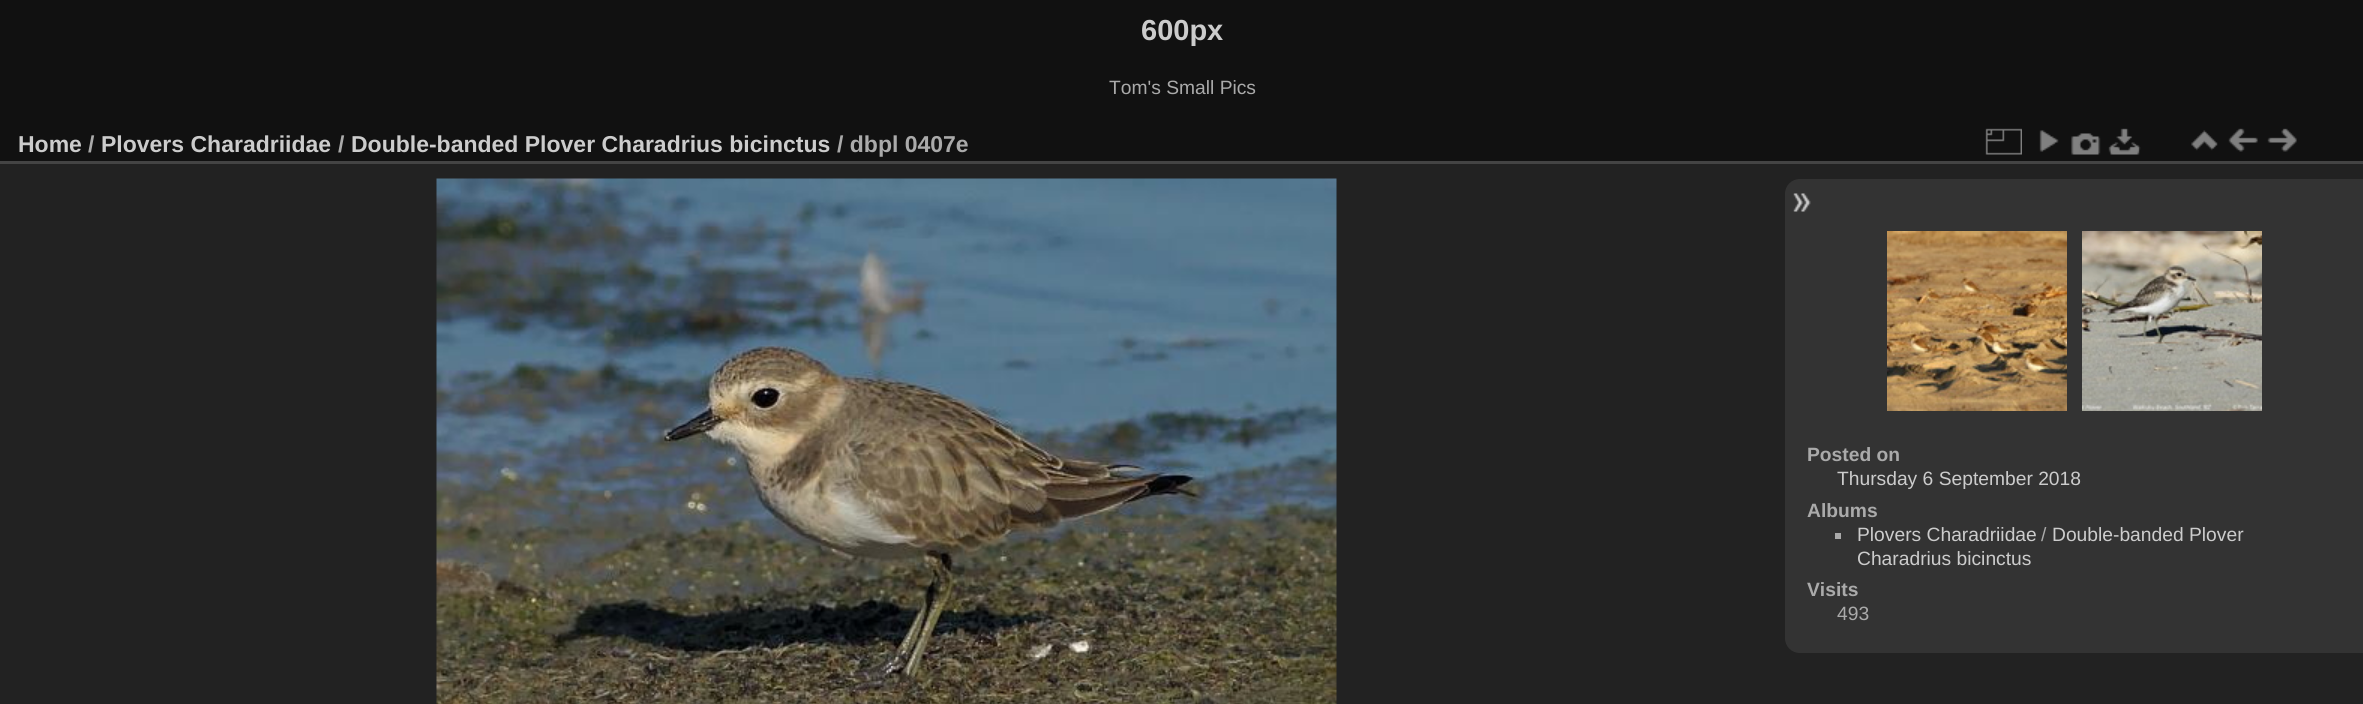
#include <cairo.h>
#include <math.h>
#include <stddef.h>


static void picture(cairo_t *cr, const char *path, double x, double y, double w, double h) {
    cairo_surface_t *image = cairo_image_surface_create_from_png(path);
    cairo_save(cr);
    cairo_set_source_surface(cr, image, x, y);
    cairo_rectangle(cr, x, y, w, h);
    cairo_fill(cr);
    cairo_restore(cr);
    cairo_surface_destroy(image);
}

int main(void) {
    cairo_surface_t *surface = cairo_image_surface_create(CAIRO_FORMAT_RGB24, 2363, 704);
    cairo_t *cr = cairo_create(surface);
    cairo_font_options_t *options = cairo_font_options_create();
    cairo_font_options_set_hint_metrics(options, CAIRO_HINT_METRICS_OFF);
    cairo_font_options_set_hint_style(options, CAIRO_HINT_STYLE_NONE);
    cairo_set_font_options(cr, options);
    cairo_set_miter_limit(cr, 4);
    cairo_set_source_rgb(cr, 0.067, 0.067, 0.067);
    cairo_paint(cr);
    cairo_select_font_face(cr, "Liberation Sans", CAIRO_FONT_SLANT_NORMAL, CAIRO_FONT_WEIGHT_BOLD);
    cairo_set_font_size(cr, 29);
    cairo_set_source_rgb(cr, 0.8, 0.8, 0.8);
    cairo_move_to(cr, 1141, 40);
    cairo_show_text(cr, "600px");
    cairo_select_font_face(cr, "Liberation Sans", CAIRO_FONT_SLANT_NORMAL, CAIRO_FONT_WEIGHT_NORMAL);
    cairo_set_font_size(cr, 19.25);
    cairo_set_source_rgb(cr, 0.667, 0.667, 0.667);
    cairo_move_to(cr, 1109, 94);
    cairo_show_text(cr, "Tom's Small Pics");
    cairo_set_source_rgb(cr, 0.133, 0.133, 0.133);
    cairo_rectangle(cr, 0, 164, 2363, 540);
    cairo_fill(cr);
    cairo_set_source_rgb(cr, 0.267, 0.267, 0.267);
    cairo_rectangle(cr, 0, 161, 2363, 3);
    cairo_fill(cr);
    cairo_select_font_face(cr, "Liberation Sans", CAIRO_FONT_SLANT_NORMAL, CAIRO_FONT_WEIGHT_BOLD);
    cairo_set_font_size(cr, 23);
    cairo_set_source_rgb(cr, 0.8, 0.8, 0.8);
    cairo_move_to(cr, 18, 152);
    cairo_show_text(cr, "Home");
    cairo_set_source_rgb(cr, 0.667, 0.667, 0.667);
    cairo_move_to(cr, 88, 152);
    cairo_show_text(cr, "/");
    cairo_set_source_rgb(cr, 0.8, 0.8, 0.8);
    cairo_move_to(cr, 101, 152);
    cairo_show_text(cr, "Plovers Charadriidae");
    cairo_set_source_rgb(cr, 0.667, 0.667, 0.667);
    cairo_move_to(cr, 338, 152);
    cairo_show_text(cr, "/");
    cairo_set_source_rgb(cr, 0.8, 0.8, 0.8);
    cairo_move_to(cr, 351, 152);
    cairo_show_text(cr, "Double-banded Plover Charadrius bicinctus");
    cairo_set_source_rgb(cr, 0.667, 0.667, 0.667);
    cairo_move_to(cr, 837, 152);
    cairo_show_text(cr, "/ dbpl 0407e");
    picture(cr, "img1.png", 1985, 128, 37, 27);
    picture(cr, "img2.png", 2039, 130, 20, 22);
    picture(cr, "img3.png", 2071, 133, 30, 22);
    picture(cr, "img4.png", 2108, 128, 33, 27);
    picture(cr, "img5.png", 2191, 130, 27, 21);
    picture(cr, "img6.png", 2228, 128, 30, 24);
    picture(cr, "img7.png", 2267, 128, 30, 24);
    picture(cr, "img8.png", 436, 178, 901, 526);
    cairo_set_source_rgb(cr, 0.2, 0.2, 0.2);
    cairo_new_path(cr);
    cairo_move_to(cr, 1800, 179);
    cairo_line_to(cr, 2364, 179);
    cairo_line_to(cr, 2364, 653);
    cairo_line_to(cr, 1800, 653);
    cairo_curve_to(cr, 1791.5, 653, 1785, 646.5, 1785, 638);
    cairo_line_to(cr, 1785, 194);
    cairo_curve_to(cr, 1785, 185.5, 1791.5, 179, 1800, 179);
    cairo_close_path(cr);
    cairo_fill(cr);
    picture(cr, "img9.png", 1793, 193, 18, 19);
    picture(cr, "img10.png", 1887, 231, 180, 180);
    picture(cr, "img11.png", 2082, 231, 180, 180);
    cairo_set_font_size(cr, 19.25);
    cairo_set_source_rgb(cr, 0.667, 0.667, 0.667);
    cairo_move_to(cr, 1807, 461);
    cairo_show_text(cr, "Posted on");
    cairo_select_font_face(cr, "Liberation Sans", CAIRO_FONT_SLANT_NORMAL, CAIRO_FONT_WEIGHT_NORMAL);
    cairo_set_source_rgb(cr, 0.8, 0.8, 0.8);
    cairo_move_to(cr, 1837, 485);
    cairo_show_text(cr, "Thursday 6 September 2018");
    cairo_select_font_face(cr, "Liberation Sans", CAIRO_FONT_SLANT_NORMAL, CAIRO_FONT_WEIGHT_BOLD);
    cairo_set_source_rgb(cr, 0.667, 0.667, 0.667);
    cairo_move_to(cr, 1807, 517);
    cairo_show_text(cr, "Albums");
    cairo_rectangle(cr, 1835, 533, 6, 6);
    cairo_fill(cr);
    cairo_select_font_face(cr, "Liberation Sans", CAIRO_FONT_SLANT_NORMAL, CAIRO_FONT_WEIGHT_NORMAL);
    cairo_set_source_rgb(cr, 0.8, 0.8, 0.8);
    cairo_move_to(cr, 1857, 541);
    cairo_show_text(cr, "Plovers Charadriidae");
    cairo_set_source_rgb(cr, 0.667, 0.667, 0.667);
    cairo_move_to(cr, 2041, 541);
    cairo_show_text(cr, "/");
    cairo_set_source_rgb(cr, 0.8, 0.8, 0.8);
    cairo_move_to(cr, 2052, 541);
    cairo_show_text(cr, "Double-banded Plover");
    cairo_move_to(cr, 1857, 565);
    cairo_show_text(cr, "Charadrius bicinctus");
    cairo_select_font_face(cr, "Liberation Sans", CAIRO_FONT_SLANT_NORMAL, CAIRO_FONT_WEIGHT_BOLD);
    cairo_set_source_rgb(cr, 0.667, 0.667, 0.667);
    cairo_move_to(cr, 1807, 596);
    cairo_show_text(cr, "Visits");
    cairo_select_font_face(cr, "Liberation Sans", CAIRO_FONT_SLANT_NORMAL, CAIRO_FONT_WEIGHT_NORMAL);
    cairo_move_to(cr, 1837, 620);
    cairo_show_text(cr, "493");
    cairo_surface_write_to_png(surface, "page.png");
    cairo_font_options_destroy(options);
    cairo_destroy(cr);
    cairo_surface_destroy(surface);
    return 0;
}
